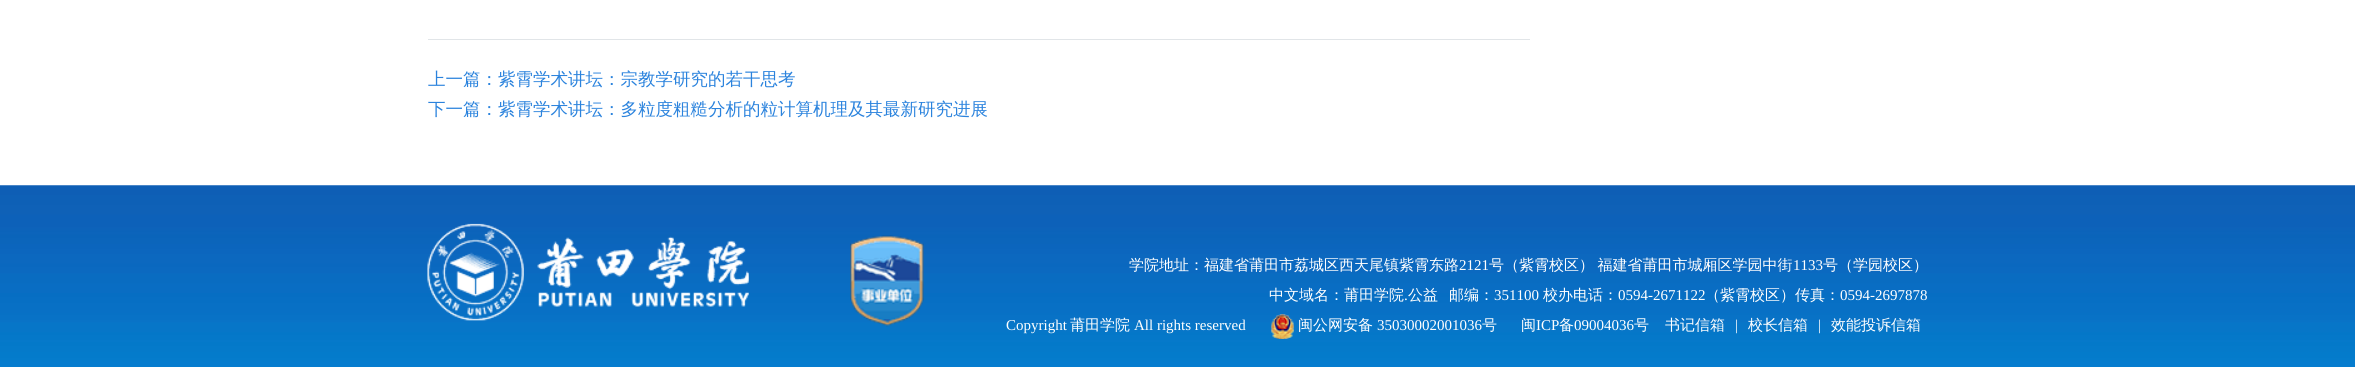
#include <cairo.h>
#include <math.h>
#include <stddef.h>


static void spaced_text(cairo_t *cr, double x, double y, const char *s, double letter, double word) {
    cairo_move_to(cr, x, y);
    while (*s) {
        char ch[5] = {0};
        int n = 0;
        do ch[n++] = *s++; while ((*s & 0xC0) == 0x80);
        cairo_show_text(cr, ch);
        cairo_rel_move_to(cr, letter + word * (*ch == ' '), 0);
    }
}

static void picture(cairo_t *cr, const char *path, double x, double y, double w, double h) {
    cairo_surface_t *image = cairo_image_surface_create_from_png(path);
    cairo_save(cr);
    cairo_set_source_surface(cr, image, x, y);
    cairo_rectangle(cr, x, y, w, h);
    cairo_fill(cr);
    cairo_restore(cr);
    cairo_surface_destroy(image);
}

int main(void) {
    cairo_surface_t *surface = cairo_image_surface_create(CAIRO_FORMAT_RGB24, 2355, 367);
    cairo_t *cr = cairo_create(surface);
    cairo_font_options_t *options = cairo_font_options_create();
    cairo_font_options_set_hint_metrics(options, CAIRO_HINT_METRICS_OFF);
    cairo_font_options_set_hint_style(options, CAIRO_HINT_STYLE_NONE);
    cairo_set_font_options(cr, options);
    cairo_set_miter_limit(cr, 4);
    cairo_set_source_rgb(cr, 1, 1, 1);
    cairo_paint(cr);
    cairo_set_source_rgb(cr, 0.882, 0.898, 0.91);
    cairo_rectangle(cr, 428, 39, 1102, 1);
    cairo_fill(cr);
    cairo_select_font_face(cr, "WenQuanYi Zen Hei Medium", CAIRO_FONT_SLANT_NORMAL, CAIRO_FONT_WEIGHT_NORMAL);
    cairo_set_font_size(cr, 17.5);
    cairo_set_source_rgb(cr, 0.169, 0.514, 0.867);
    cairo_move_to(cr, 428, 85);
    cairo_show_text(cr, "上一篇：紫霄学术讲坛：宗教学研究的若干思考");
    cairo_move_to(cr, 428, 115);
    cairo_show_text(cr, "下一篇：紫霄学术讲坛：多粒度粗糙分析的粒计算机理及其最新研究进展");
    picture(cr, "img1.png", 0, 185, 2355, 182);
    picture(cr, "img2.png", 427, 223, 322, 98);
    picture(cr, "img3.png", 850, 235, 74, 92);
    cairo_set_font_size(cr, 15);
    cairo_set_source_rgb(cr, 1, 1, 1);
    cairo_move_to(cr, 1129, 270);
    cairo_show_text(cr, "学院地址：福建省莆田市荔城区西天尾镇紫霄东路");
    cairo_select_font_face(cr, "Liberation Serif", CAIRO_FONT_SLANT_NORMAL, CAIRO_FONT_WEIGHT_NORMAL);
    cairo_move_to(cr, 1459, 270);
    cairo_show_text(cr, "2121");
    cairo_select_font_face(cr, "WenQuanYi Zen Hei Medium", CAIRO_FONT_SLANT_NORMAL, CAIRO_FONT_WEIGHT_NORMAL);
    spaced_text(cr, 1489, 270, "号（紫霄校区） 福建省莆田市城厢区学园中街", 0, -1);
    cairo_select_font_face(cr, "Liberation Serif", CAIRO_FONT_SLANT_NORMAL, CAIRO_FONT_WEIGHT_NORMAL);
    cairo_move_to(cr, 1793, 270);
    cairo_show_text(cr, "1133");
    cairo_select_font_face(cr, "WenQuanYi Zen Hei Medium", CAIRO_FONT_SLANT_NORMAL, CAIRO_FONT_WEIGHT_NORMAL);
    cairo_move_to(cr, 1823, 270);
    cairo_show_text(cr, "号（学园校区）");
    cairo_move_to(cr, 1269, 300);
    cairo_show_text(cr, "中文域名：莆田学院");
    cairo_select_font_face(cr, "Liberation Serif", CAIRO_FONT_SLANT_NORMAL, CAIRO_FONT_WEIGHT_NORMAL);
    cairo_move_to(cr, 1404, 300);
    cairo_show_text(cr, ".");
    cairo_select_font_face(cr, "WenQuanYi Zen Hei Medium", CAIRO_FONT_SLANT_NORMAL, CAIRO_FONT_WEIGHT_NORMAL);
    cairo_move_to(cr, 1408, 300);
    cairo_show_text(cr, "公益");
    cairo_move_to(cr, 1449, 300);
    cairo_show_text(cr, "邮编：");
    cairo_select_font_face(cr, "Liberation Serif", CAIRO_FONT_SLANT_NORMAL, CAIRO_FONT_WEIGHT_NORMAL);
    cairo_move_to(cr, 1494, 300);
    cairo_show_text(cr, "351100");
    cairo_select_font_face(cr, "WenQuanYi Zen Hei Medium", CAIRO_FONT_SLANT_NORMAL, CAIRO_FONT_WEIGHT_NORMAL);
    cairo_move_to(cr, 1543, 300);
    cairo_show_text(cr, "校办电话：");
    cairo_select_font_face(cr, "Liberation Serif", CAIRO_FONT_SLANT_NORMAL, CAIRO_FONT_WEIGHT_NORMAL);
    cairo_move_to(cr, 1618, 300);
    cairo_show_text(cr, "0594-2671122");
    cairo_select_font_face(cr, "WenQuanYi Zen Hei Medium", CAIRO_FONT_SLANT_NORMAL, CAIRO_FONT_WEIGHT_NORMAL);
    cairo_move_to(cr, 1705, 300);
    cairo_show_text(cr, "（紫霄校区）传真：");
    cairo_select_font_face(cr, "Liberation Serif", CAIRO_FONT_SLANT_NORMAL, CAIRO_FONT_WEIGHT_NORMAL);
    cairo_move_to(cr, 1840, 300);
    cairo_show_text(cr, "0594-2697878");
    cairo_move_to(cr, 1006, 330);
    cairo_show_text(cr, "Copyright");
    cairo_select_font_face(cr, "WenQuanYi Zen Hei Medium", CAIRO_FONT_SLANT_NORMAL, CAIRO_FONT_WEIGHT_NORMAL);
    cairo_move_to(cr, 1070, 330);
    cairo_show_text(cr, "莆田学院");
    cairo_select_font_face(cr, "Liberation Serif", CAIRO_FONT_SLANT_NORMAL, CAIRO_FONT_WEIGHT_NORMAL);
    cairo_move_to(cr, 1134, 330);
    cairo_show_text(cr, "All rights reserved");
    picture(cr, "img4.png", 1271, 314, 23, 25);
    cairo_select_font_face(cr, "WenQuanYi Zen Hei Medium", CAIRO_FONT_SLANT_NORMAL, CAIRO_FONT_WEIGHT_NORMAL);
    cairo_move_to(cr, 1298, 330);
    cairo_show_text(cr, "闽公网安备");
    cairo_select_font_face(cr, "Liberation Serif", CAIRO_FONT_SLANT_NORMAL, CAIRO_FONT_WEIGHT_NORMAL);
    cairo_move_to(cr, 1377, 330);
    cairo_show_text(cr, "35030002001036");
    cairo_select_font_face(cr, "WenQuanYi Zen Hei Medium", CAIRO_FONT_SLANT_NORMAL, CAIRO_FONT_WEIGHT_NORMAL);
    cairo_move_to(cr, 1482, 330);
    cairo_show_text(cr, "号");
    cairo_move_to(cr, 1521, 330);
    cairo_show_text(cr, "闽");
    cairo_select_font_face(cr, "Liberation Serif", CAIRO_FONT_SLANT_NORMAL, CAIRO_FONT_WEIGHT_NORMAL);
    cairo_move_to(cr, 1536, 330);
    cairo_show_text(cr, "ICP");
    cairo_select_font_face(cr, "WenQuanYi Zen Hei Medium", CAIRO_FONT_SLANT_NORMAL, CAIRO_FONT_WEIGHT_NORMAL);
    cairo_move_to(cr, 1559, 330);
    cairo_show_text(cr, "备");
    cairo_select_font_face(cr, "Liberation Serif", CAIRO_FONT_SLANT_NORMAL, CAIRO_FONT_WEIGHT_NORMAL);
    cairo_move_to(cr, 1574, 330);
    cairo_show_text(cr, "09004036");
    cairo_select_font_face(cr, "WenQuanYi Zen Hei Medium", CAIRO_FONT_SLANT_NORMAL, CAIRO_FONT_WEIGHT_NORMAL);
    cairo_move_to(cr, 1634, 330);
    cairo_show_text(cr, "号");
    cairo_move_to(cr, 1665, 330);
    cairo_show_text(cr, "书记信箱");
    cairo_select_font_face(cr, "Liberation Serif", CAIRO_FONT_SLANT_NORMAL, CAIRO_FONT_WEIGHT_NORMAL);
    cairo_move_to(cr, 1735, 330);
    cairo_show_text(cr, "|");
    cairo_select_font_face(cr, "WenQuanYi Zen Hei Medium", CAIRO_FONT_SLANT_NORMAL, CAIRO_FONT_WEIGHT_NORMAL);
    cairo_move_to(cr, 1748, 330);
    cairo_show_text(cr, "校长信箱");
    cairo_select_font_face(cr, "Liberation Serif", CAIRO_FONT_SLANT_NORMAL, CAIRO_FONT_WEIGHT_NORMAL);
    cairo_move_to(cr, 1818, 330);
    cairo_show_text(cr, "|");
    cairo_select_font_face(cr, "WenQuanYi Zen Hei Medium", CAIRO_FONT_SLANT_NORMAL, CAIRO_FONT_WEIGHT_NORMAL);
    cairo_move_to(cr, 1831, 330);
    cairo_show_text(cr, "效能投诉信箱");
    cairo_surface_write_to_png(surface, "page.png");
    cairo_font_options_destroy(options);
    cairo_destroy(cr);
    cairo_surface_destroy(surface);
    return 0;
}
